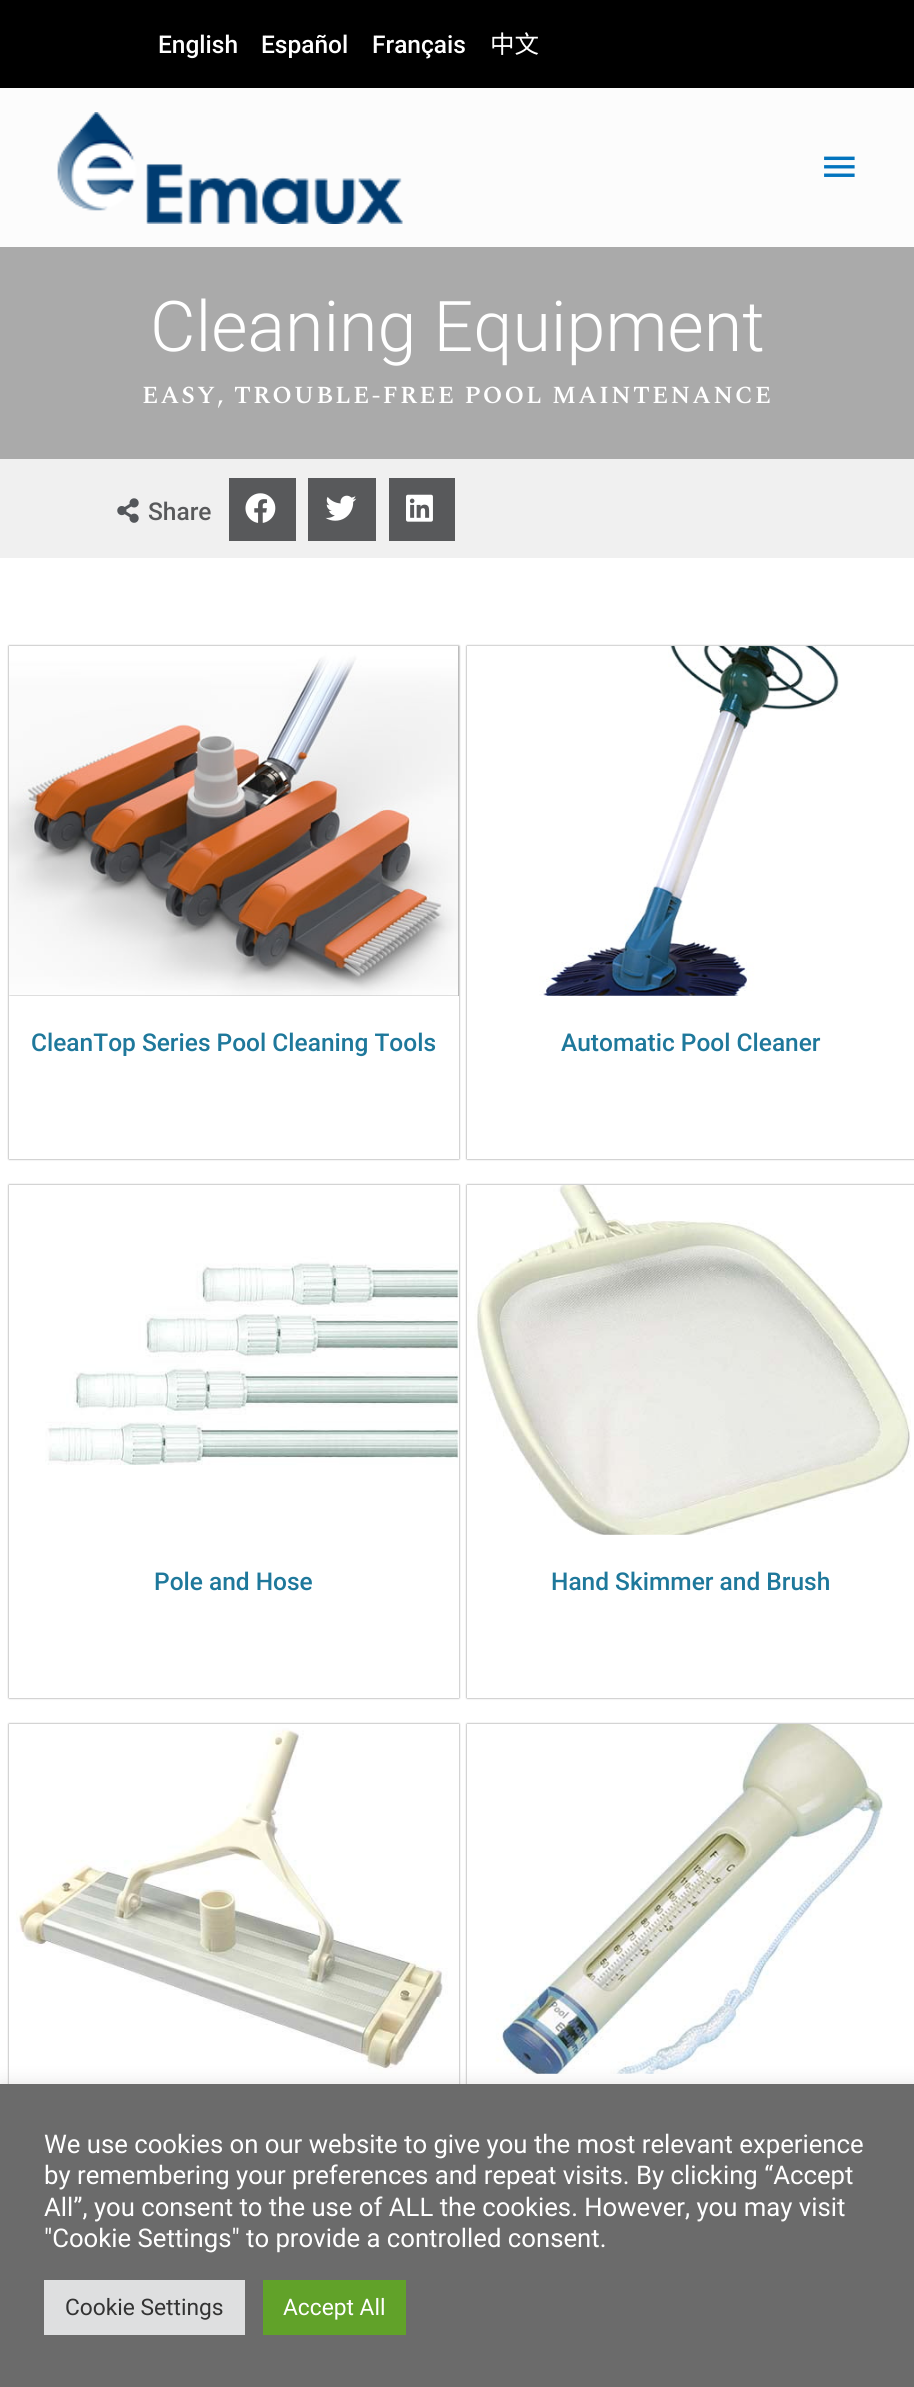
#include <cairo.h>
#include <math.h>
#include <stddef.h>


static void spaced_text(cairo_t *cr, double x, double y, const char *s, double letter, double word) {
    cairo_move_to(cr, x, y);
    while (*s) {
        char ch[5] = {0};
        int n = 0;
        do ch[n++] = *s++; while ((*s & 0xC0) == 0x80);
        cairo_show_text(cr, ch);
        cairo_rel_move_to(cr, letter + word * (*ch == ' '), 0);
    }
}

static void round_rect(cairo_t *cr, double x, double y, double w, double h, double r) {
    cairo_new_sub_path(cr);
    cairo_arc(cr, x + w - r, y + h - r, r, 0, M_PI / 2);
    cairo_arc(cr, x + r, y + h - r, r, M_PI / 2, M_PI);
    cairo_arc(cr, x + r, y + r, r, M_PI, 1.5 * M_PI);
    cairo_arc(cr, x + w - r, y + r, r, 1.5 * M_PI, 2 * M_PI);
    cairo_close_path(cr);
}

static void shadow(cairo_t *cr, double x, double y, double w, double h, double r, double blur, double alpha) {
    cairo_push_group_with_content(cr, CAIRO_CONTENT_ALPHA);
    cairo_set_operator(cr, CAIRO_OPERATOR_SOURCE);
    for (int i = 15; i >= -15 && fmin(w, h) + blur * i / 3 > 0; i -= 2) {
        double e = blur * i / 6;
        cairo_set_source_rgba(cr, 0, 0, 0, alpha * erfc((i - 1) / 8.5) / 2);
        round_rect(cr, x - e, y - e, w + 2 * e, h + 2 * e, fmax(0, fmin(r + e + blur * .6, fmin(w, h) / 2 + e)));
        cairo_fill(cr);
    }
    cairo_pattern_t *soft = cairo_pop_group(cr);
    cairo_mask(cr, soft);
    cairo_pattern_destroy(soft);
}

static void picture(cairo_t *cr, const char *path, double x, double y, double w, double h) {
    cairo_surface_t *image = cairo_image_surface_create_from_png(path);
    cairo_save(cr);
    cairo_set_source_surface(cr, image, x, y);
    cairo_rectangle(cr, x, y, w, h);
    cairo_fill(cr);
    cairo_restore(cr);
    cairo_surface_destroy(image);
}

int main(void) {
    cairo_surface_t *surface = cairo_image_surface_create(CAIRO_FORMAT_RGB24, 914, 2387);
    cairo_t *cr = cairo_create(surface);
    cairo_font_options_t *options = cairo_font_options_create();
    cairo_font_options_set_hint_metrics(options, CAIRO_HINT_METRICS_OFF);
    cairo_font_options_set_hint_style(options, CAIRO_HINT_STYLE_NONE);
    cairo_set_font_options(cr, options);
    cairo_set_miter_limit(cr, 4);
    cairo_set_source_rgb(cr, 0.941, 0.941, 0.941);
    cairo_paint(cr);
    cairo_set_source_rgb(cr, 0, 0, 0);
    cairo_rectangle(cr, 0, 0, 914, 88);
    cairo_fill(cr);
    cairo_select_font_face(cr, "Roboto Medium", CAIRO_FONT_SLANT_NORMAL, CAIRO_FONT_WEIGHT_NORMAL);
    cairo_set_font_size(cr, 24.5);
    cairo_set_source_rgb(cr, 1, 1, 1);
    cairo_move_to(cr, 158, 53);
    cairo_show_text(cr, "English");
    cairo_move_to(cr, 261, 53);
    cairo_show_text(cr, "Español");
    cairo_move_to(cr, 372, 53);
    cairo_show_text(cr, "Français");
    cairo_select_font_face(cr, "Noto Sans CJK SC", CAIRO_FONT_SLANT_NORMAL, CAIRO_FONT_WEIGHT_NORMAL);
    cairo_move_to(cr, 490, 53);
    cairo_show_text(cr, "中文");
    cairo_set_source_rgb(cr, 0.988, 0.988, 0.988);
    cairo_rectangle(cr, 0, 88, 914, 159);
    cairo_fill(cr);
    picture(cr, "img1.png", 57, 112, 346, 112);
    picture(cr, "img2.png", 824, 156, 31, 21);
    cairo_set_source_rgb(cr, 0.667, 0.667, 0.667);
    cairo_rectangle(cr, 0, 247, 914, 212);
    cairo_fill(cr);
    cairo_select_font_face(cr, "Roboto Light", CAIRO_FONT_SLANT_NORMAL, CAIRO_FONT_WEIGHT_NORMAL);
    cairo_set_font_size(cr, 70);
    cairo_set_source_rgb(cr, 1, 1, 1);
    cairo_move_to(cr, 150, 351);
    cairo_show_text(cr, "Cleaning Equipment");
    cairo_select_font_face(cr, "Spectral SemiBold", CAIRO_FONT_SLANT_NORMAL, CAIRO_FONT_WEIGHT_NORMAL);
    cairo_set_font_size(cr, 24.5);
    spaced_text(cr, 142, 403, "EASY, TROUBLE-FREE POOL MAINTENANCE", 2.1, 0);
    picture(cr, "img3.png", 117, 498, 22, 25);
    cairo_select_font_face(cr, "Roboto Medium", CAIRO_FONT_SLANT_NORMAL, CAIRO_FONT_WEIGHT_NORMAL);
    cairo_set_source_rgb(cr, 0.345, 0.349, 0.357);
    cairo_move_to(cr, 148, 520);
    cairo_show_text(cr, "Share");
    cairo_rectangle(cr, 231, 480, 63, 59);
    cairo_set_line_width(cr, 4);
    cairo_stroke(cr);
    cairo_rectangle(cr, 233, 482, 59, 55);
    cairo_fill(cr);
    picture(cr, "img4.png", 245, 493, 31, 30);
    cairo_rectangle(cr, 310, 480, 64, 59);
    cairo_stroke(cr);
    cairo_rectangle(cr, 312, 482, 60, 55);
    cairo_fill(cr);
    picture(cr, "img5.png", 325, 495, 32, 26);
    cairo_rectangle(cr, 391, 480, 62, 59);
    cairo_stroke(cr);
    cairo_rectangle(cr, 393, 482, 58, 55);
    cairo_fill(cr);
    picture(cr, "img6.png", 406, 494, 27, 28);
    cairo_set_source_rgb(cr, 1, 1, 1);
    cairo_rectangle(cr, 0, 558, 914, 1526);
    cairo_fill(cr);
    cairo_set_source_rgb(cr, 0, 0, 0);
    shadow(cr, 9, 646, 450, 513, 0, 1, 0.5);
    picture(cr, "img7.png", 9, 646, 450, 350);
    cairo_set_source_rgb(cr, 1, 1, 1);
    cairo_rectangle(cr, 9, 996, 450, 163);
    cairo_fill(cr);
    cairo_set_source_rgb(cr, 0.118, 0.471, 0.608);
    cairo_move_to(cr, 31, 1051);
    cairo_show_text(cr, "CleanTop Series Pool Cleaning Tools");
    cairo_save(cr);
    cairo_set_fill_rule(cr, CAIRO_FILL_RULE_EVEN_ODD);
    cairo_new_path(cr);
    cairo_move_to(cr, 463, 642);
    cairo_line_to(cr, 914, 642);
    cairo_line_to(cr, 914, 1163);
    cairo_line_to(cr, 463, 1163);
    cairo_close_path(cr);
    cairo_move_to(cr, 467, 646);
    cairo_line_to(cr, 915, 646);
    cairo_line_to(cr, 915, 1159);
    cairo_line_to(cr, 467, 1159);
    cairo_close_path(cr);
    cairo_clip(cr);
    cairo_set_source_rgb(cr, 0, 0, 0);
    shadow(cr, 467, 646, 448, 513, 0, 1, 0.5);
    cairo_restore(cr);
    picture(cr, "img8.png", 467, 645, 373, 351);
    cairo_set_source_rgb(cr, 1, 1, 1);
    cairo_rectangle(cr, 467, 996, 447, 163);
    cairo_fill(cr);
    cairo_set_source_rgb(cr, 0.118, 0.471, 0.608);
    cairo_move_to(cr, 561, 1051);
    cairo_show_text(cr, "Automatic Pool Cleaner");
    cairo_save(cr);
    cairo_set_fill_rule(cr, CAIRO_FILL_RULE_EVEN_ODD);
    cairo_new_path(cr);
    cairo_move_to(cr, 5, 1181);
    cairo_line_to(cr, 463, 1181);
    cairo_line_to(cr, 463, 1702);
    cairo_line_to(cr, 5, 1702);
    cairo_close_path(cr);
    cairo_move_to(cr, 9, 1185);
    cairo_line_to(cr, 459, 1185);
    cairo_line_to(cr, 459, 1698);
    cairo_line_to(cr, 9, 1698);
    cairo_close_path(cr);
    cairo_clip(cr);
    cairo_set_source_rgb(cr, 0, 0, 0);
    shadow(cr, 9, 1185, 450, 513, 0, 1, 0.5);
    cairo_restore(cr);
    picture(cr, "img9.png", 45, 1185, 414, 350);
    cairo_set_source_rgb(cr, 1, 1, 1);
    cairo_rectangle(cr, 9, 1535, 450, 163);
    cairo_fill(cr);
    cairo_set_source_rgb(cr, 0.118, 0.471, 0.608);
    cairo_move_to(cr, 154, 1590);
    cairo_show_text(cr, "Pole and Hose");
    cairo_save(cr);
    cairo_set_fill_rule(cr, CAIRO_FILL_RULE_EVEN_ODD);
    cairo_new_path(cr);
    cairo_move_to(cr, 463, 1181);
    cairo_line_to(cr, 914, 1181);
    cairo_line_to(cr, 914, 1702);
    cairo_line_to(cr, 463, 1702);
    cairo_close_path(cr);
    cairo_move_to(cr, 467, 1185);
    cairo_line_to(cr, 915, 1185);
    cairo_line_to(cr, 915, 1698);
    cairo_line_to(cr, 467, 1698);
    cairo_close_path(cr);
    cairo_clip(cr);
    cairo_set_source_rgb(cr, 0, 0, 0);
    shadow(cr, 467, 1185, 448, 513, 0, 1, 0.5);
    cairo_restore(cr);
    picture(cr, "img10.png", 467, 1185, 444, 350);
    cairo_set_source_rgb(cr, 1, 1, 1);
    cairo_rectangle(cr, 467, 1535, 447, 163);
    cairo_fill(cr);
    cairo_set_source_rgb(cr, 0.118, 0.471, 0.608);
    cairo_move_to(cr, 551, 1590);
    cairo_show_text(cr, "Hand Skimmer and Brush");
    cairo_save(cr);
    cairo_set_fill_rule(cr, CAIRO_FILL_RULE_EVEN_ODD);
    cairo_new_path(cr);
    cairo_move_to(cr, 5, 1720);
    cairo_line_to(cr, 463, 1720);
    cairo_line_to(cr, 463, 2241);
    cairo_line_to(cr, 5, 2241);
    cairo_close_path(cr);
    cairo_move_to(cr, 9, 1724);
    cairo_line_to(cr, 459, 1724);
    cairo_line_to(cr, 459, 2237);
    cairo_line_to(cr, 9, 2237);
    cairo_close_path(cr);
    cairo_clip(cr);
    cairo_set_source_rgb(cr, 0, 0, 0);
    shadow(cr, 9, 1724, 450, 513, 0, 1, 0.5);
    cairo_restore(cr);
    picture(cr, "img11.png", 16, 1724, 443, 350);
    cairo_set_source_rgb(cr, 1, 1, 1);
    cairo_rectangle(cr, 458, 2074, 1, 10);
    cairo_fill(cr);
    cairo_save(cr);
    cairo_set_fill_rule(cr, CAIRO_FILL_RULE_EVEN_ODD);
    cairo_new_path(cr);
    cairo_move_to(cr, 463, 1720);
    cairo_line_to(cr, 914, 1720);
    cairo_line_to(cr, 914, 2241);
    cairo_line_to(cr, 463, 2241);
    cairo_close_path(cr);
    cairo_move_to(cr, 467, 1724);
    cairo_line_to(cr, 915, 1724);
    cairo_line_to(cr, 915, 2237);
    cairo_line_to(cr, 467, 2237);
    cairo_close_path(cr);
    cairo_clip(cr);
    cairo_set_source_rgb(cr, 0, 0, 0);
    shadow(cr, 467, 1724, 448, 513, 0, 1, 0.5);
    cairo_restore(cr);
    picture(cr, "img12.png", 467, 1724, 416, 350);
    cairo_rectangle(cr, 467, 2074, 1, 10);
    cairo_fill(cr);
    cairo_set_source_rgb(cr, 0.675, 0.671, 0.671);
    shadow(cr, 0, 2083, 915, 302, 0, 9, 0.3);
    cairo_set_source_rgb(cr, 0.42, 0.42, 0.42);
    cairo_rectangle(cr, 0, 2084, 914, 303);
    cairo_fill(cr);
    cairo_select_font_face(cr, "Roboto", CAIRO_FONT_SLANT_NORMAL, CAIRO_FONT_WEIGHT_NORMAL);
    cairo_set_font_size(cr, 25.7);
    cairo_set_source_rgb(cr, 1, 1, 1);
    cairo_move_to(cr, 44, 2153);
    cairo_show_text(cr, "We use cookies on our website to give you the most relevant experience");
    cairo_move_to(cr, 44, 2184);
    cairo_show_text(cr, "by remembering your preferences and repeat visits. By clicking “Accept");
    cairo_move_to(cr, 44, 2216);
    cairo_show_text(cr, "All”, you consent to the use of ALL the cookies. However, you may visit");
    cairo_move_to(cr, 44, 2247);
    cairo_show_text(cr, "\"Cookie Settings\" to provide a controlled consent.");
    cairo_set_source_rgb(cr, 0.871, 0.875, 0.878);
    cairo_rectangle(cr, 44, 2280, 201, 55);
    cairo_fill(cr);
    cairo_set_font_size(cr, 22.75);
    cairo_set_source_rgb(cr, 0.2, 0.2, 0.2);
    cairo_move_to(cr, 65, 2315);
    cairo_show_text(cr, "Cookie Settings");
    cairo_set_source_rgb(cr, 0.38, 0.635, 0.161);
    cairo_rectangle(cr, 263, 2280, 143, 55);
    cairo_fill(cr);
    cairo_set_source_rgb(cr, 1, 1, 1);
    cairo_move_to(cr, 283, 2315);
    cairo_show_text(cr, "Accept All");
    cairo_surface_write_to_png(surface, "page.png");
    cairo_font_options_destroy(options);
    cairo_destroy(cr);
    cairo_surface_destroy(surface);
    return 0;
}
